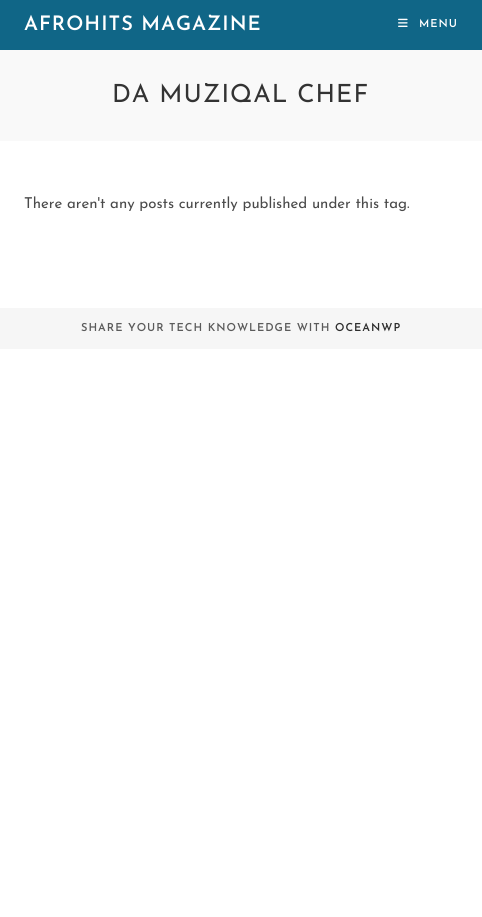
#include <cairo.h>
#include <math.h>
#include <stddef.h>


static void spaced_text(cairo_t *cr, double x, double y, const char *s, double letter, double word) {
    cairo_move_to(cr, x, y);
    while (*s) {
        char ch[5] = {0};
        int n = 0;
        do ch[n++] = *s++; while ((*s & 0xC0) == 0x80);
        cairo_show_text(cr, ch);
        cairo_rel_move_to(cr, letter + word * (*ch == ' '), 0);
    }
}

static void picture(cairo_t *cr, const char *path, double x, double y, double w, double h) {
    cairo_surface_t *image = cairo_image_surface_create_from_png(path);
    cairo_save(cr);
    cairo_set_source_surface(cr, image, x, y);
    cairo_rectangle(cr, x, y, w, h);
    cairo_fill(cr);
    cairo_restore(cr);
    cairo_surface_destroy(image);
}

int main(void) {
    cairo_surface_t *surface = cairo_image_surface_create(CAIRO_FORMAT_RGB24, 482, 917);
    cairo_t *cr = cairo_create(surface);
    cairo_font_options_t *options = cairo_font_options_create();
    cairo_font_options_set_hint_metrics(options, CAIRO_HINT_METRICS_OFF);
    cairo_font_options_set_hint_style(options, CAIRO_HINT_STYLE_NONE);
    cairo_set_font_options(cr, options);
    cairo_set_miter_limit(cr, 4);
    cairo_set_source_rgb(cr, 1, 1, 1);
    cairo_paint(cr);
    cairo_set_source_rgb(cr, 0.063, 0.4, 0.529);
    cairo_rectangle(cr, 0, 0, 482, 50);
    cairo_fill(cr);
    cairo_select_font_face(cr, "Josefin Sans SemiBold", CAIRO_FONT_SLANT_NORMAL, CAIRO_FONT_WEIGHT_NORMAL);
    cairo_set_font_size(cr, 20);
    cairo_set_source_rgb(cr, 1, 1, 1);
    spaced_text(cr, 24, 30, "AFROHITS MAGAZINE", 1, 0);
    picture(cr, "img1.png", 398, 18, 10, 9);
    cairo_set_font_size(cr, 11);
    spaced_text(cr, 419, 27, "MENU", 1, 0);
    cairo_set_source_rgb(cr, 0.976, 0.976, 0.976);
    cairo_rectangle(cr, 0, 50, 482, 91);
    cairo_fill(cr);
    cairo_select_font_face(cr, "Josefin Sans", CAIRO_FONT_SLANT_NORMAL, CAIRO_FONT_WEIGHT_NORMAL);
    cairo_set_font_size(cr, 25);
    cairo_set_source_rgb(cr, 0.2, 0.2, 0.2);
    spaced_text(cr, 112, 102, "DA MUZIQAL CHEF", 1, 0);
    cairo_set_font_size(cr, 15);
    cairo_set_source_rgb(cr, 0.29, 0.29, 0.29);
    cairo_move_to(cr, 24, 208);
    cairo_show_text(cr, "There aren't any posts currently published under this tag.");
    cairo_set_source_rgb(cr, 0.961, 0.961, 0.961);
    cairo_rectangle(cr, 0, 308, 482, 41);
    cairo_fill(cr);
    cairo_select_font_face(cr, "Josefin Sans SemiBold", CAIRO_FONT_SLANT_NORMAL, CAIRO_FONT_WEIGHT_NORMAL);
    cairo_set_font_size(cr, 11);
    cairo_set_source_rgb(cr, 0.357, 0.357, 0.357);
    spaced_text(cr, 81, 331, "SHARE YOUR TECH KNOWLEDGE WITH", 1, 0);
    cairo_set_source_rgb(cr, 0.176, 0.176, 0.176);
    spaced_text(cr, 335, 331, "OCEANWP", 1, 0);
    cairo_surface_write_to_png(surface, "page.png");
    cairo_font_options_destroy(options);
    cairo_destroy(cr);
    cairo_surface_destroy(surface);
    return 0;
}
